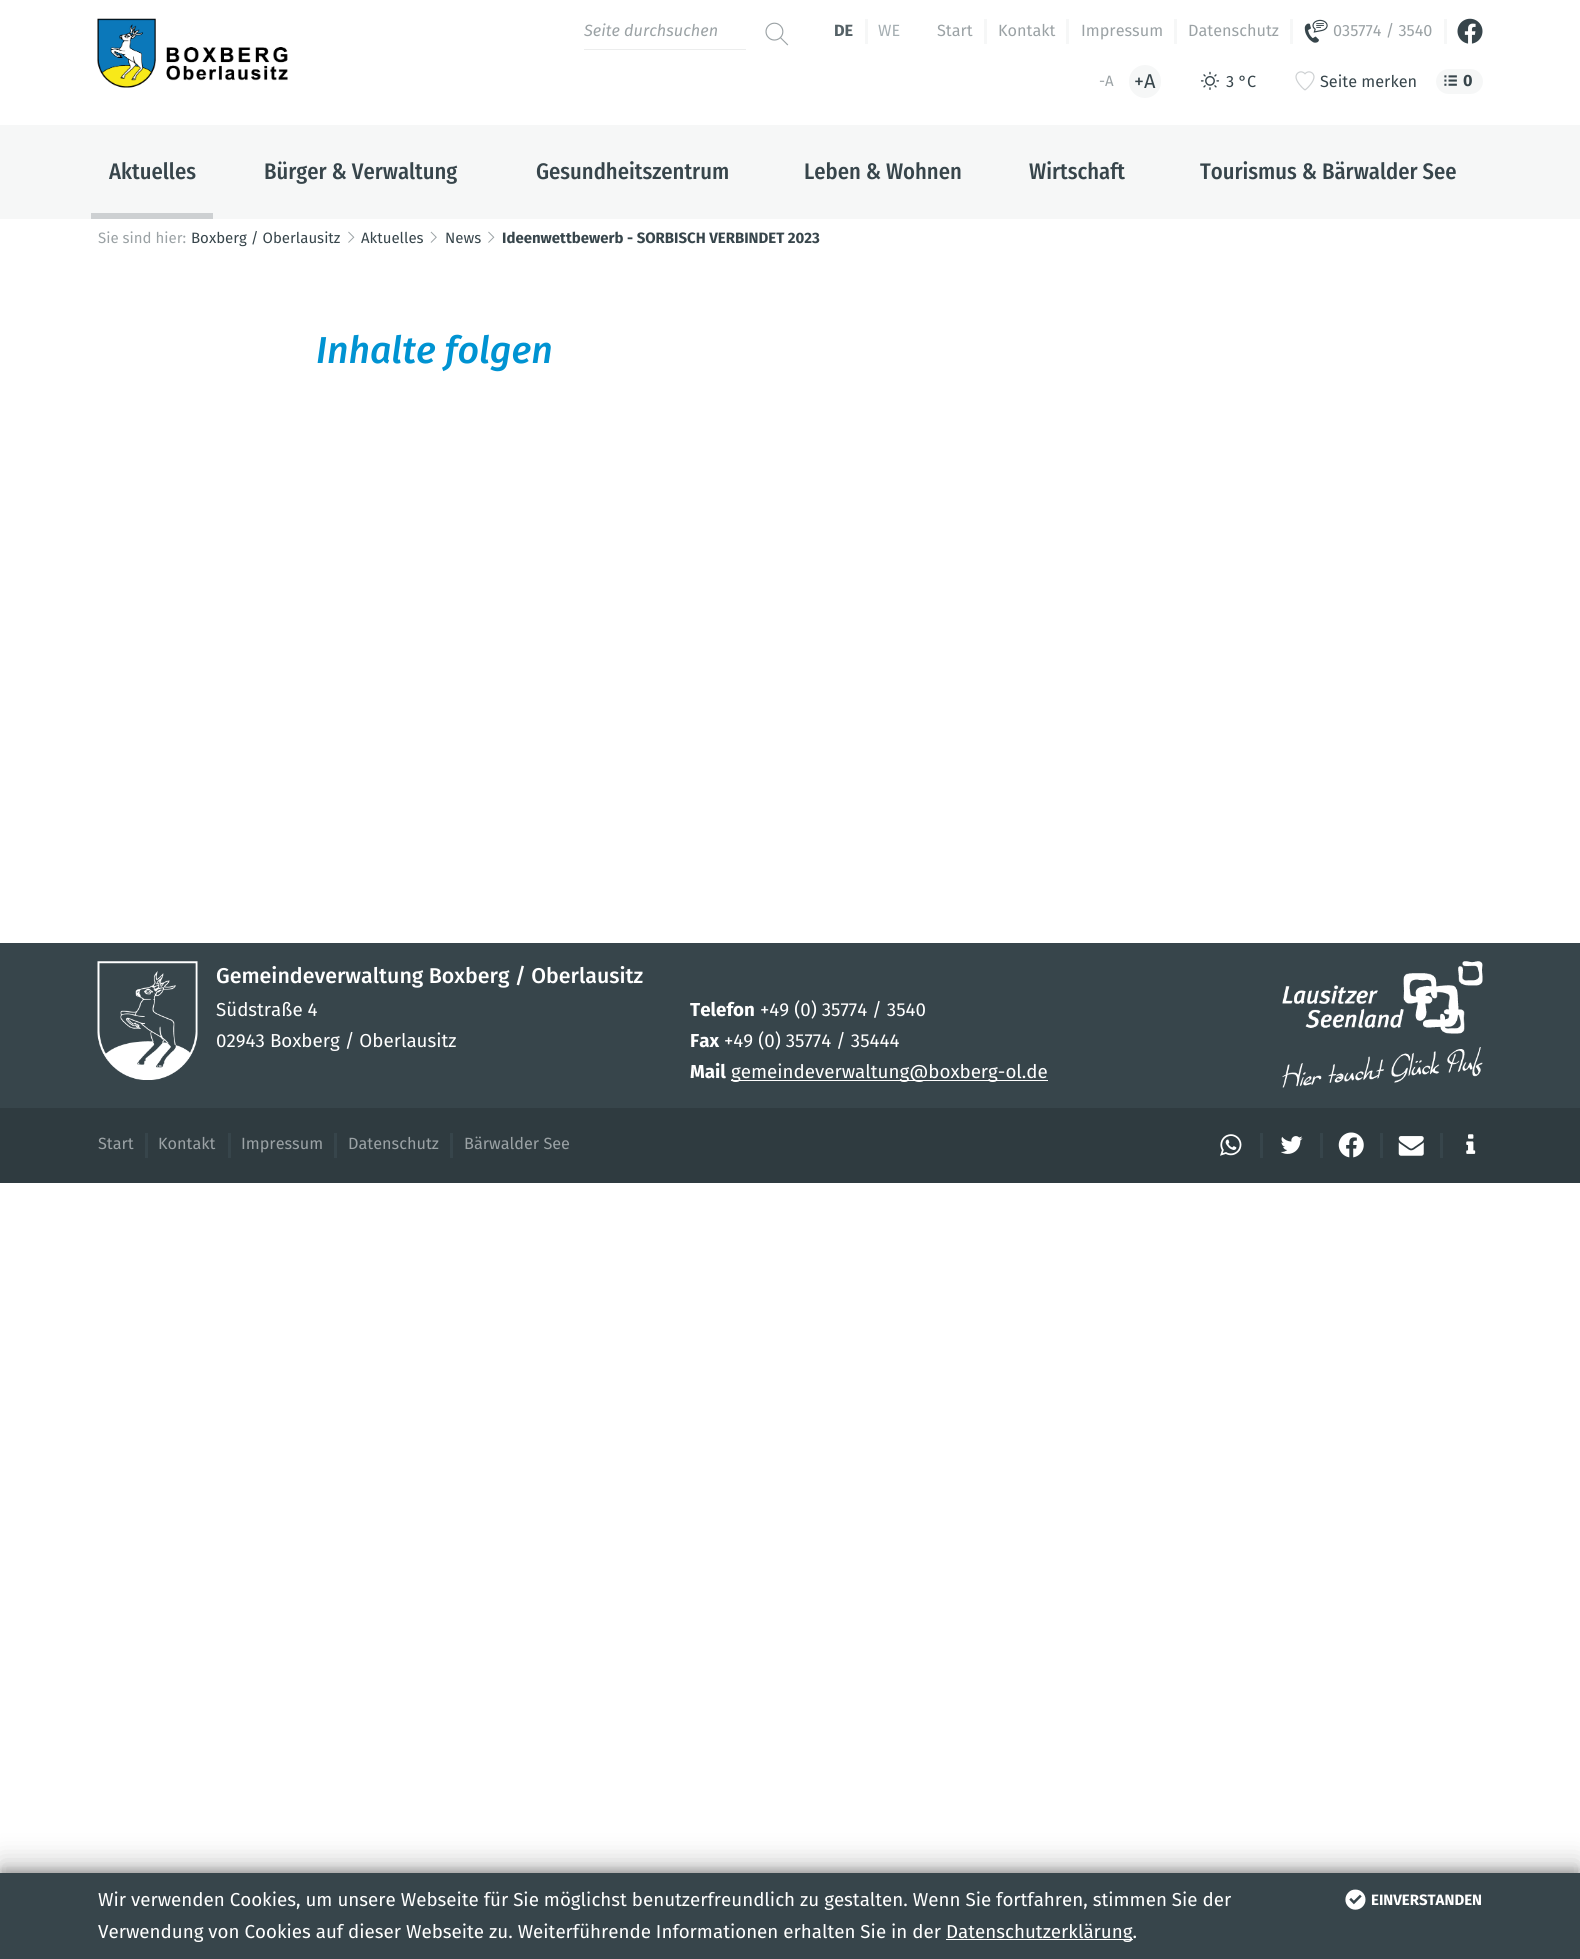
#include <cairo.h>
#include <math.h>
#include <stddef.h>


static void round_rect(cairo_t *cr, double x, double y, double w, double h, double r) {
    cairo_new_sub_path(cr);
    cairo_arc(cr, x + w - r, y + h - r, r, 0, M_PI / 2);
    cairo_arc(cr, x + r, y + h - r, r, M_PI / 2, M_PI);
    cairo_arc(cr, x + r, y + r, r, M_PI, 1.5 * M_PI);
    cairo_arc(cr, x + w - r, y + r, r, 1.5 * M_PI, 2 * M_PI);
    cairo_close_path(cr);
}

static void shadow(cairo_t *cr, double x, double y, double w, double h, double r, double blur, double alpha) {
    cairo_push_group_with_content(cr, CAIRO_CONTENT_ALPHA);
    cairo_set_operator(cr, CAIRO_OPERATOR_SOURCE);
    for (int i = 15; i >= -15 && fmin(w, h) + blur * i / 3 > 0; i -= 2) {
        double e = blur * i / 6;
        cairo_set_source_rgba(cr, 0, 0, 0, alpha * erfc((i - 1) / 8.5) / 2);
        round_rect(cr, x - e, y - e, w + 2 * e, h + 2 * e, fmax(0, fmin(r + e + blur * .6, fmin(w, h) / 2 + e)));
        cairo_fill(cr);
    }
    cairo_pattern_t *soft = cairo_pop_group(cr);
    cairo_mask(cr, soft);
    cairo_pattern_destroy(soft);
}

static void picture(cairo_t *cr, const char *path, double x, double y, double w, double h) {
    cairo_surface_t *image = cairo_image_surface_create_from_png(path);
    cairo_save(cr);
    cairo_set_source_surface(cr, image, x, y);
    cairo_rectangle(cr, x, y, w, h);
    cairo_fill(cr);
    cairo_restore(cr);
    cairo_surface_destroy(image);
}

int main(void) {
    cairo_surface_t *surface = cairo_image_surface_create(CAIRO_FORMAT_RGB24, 1580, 1959);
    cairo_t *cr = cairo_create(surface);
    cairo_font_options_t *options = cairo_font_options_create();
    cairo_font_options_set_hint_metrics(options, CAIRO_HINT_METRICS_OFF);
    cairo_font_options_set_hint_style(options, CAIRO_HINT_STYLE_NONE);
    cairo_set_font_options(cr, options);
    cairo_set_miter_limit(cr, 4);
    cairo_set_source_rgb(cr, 1, 1, 1);
    cairo_paint(cr);
    picture(cr, "img1.png", 97, 18, 191, 70);
    cairo_set_source_rgb(cr, 0.922, 0.929, 0.929);
    cairo_rectangle(cr, 584, 49, 162, 1);
    cairo_fill(cr);
    cairo_select_font_face(cr, "Fira Sans", CAIRO_FONT_SLANT_ITALIC, CAIRO_FONT_WEIGHT_NORMAL);
    cairo_set_font_size(cr, 16.25);
    cairo_set_source_rgb(cr, 0.608, 0.635, 0.647);
    cairo_move_to(cr, 584, 36);
    cairo_show_text(cr, "Seite durchsuchen");
    picture(cr, "img2.png", 765, 22, 24, 24);
    cairo_select_font_face(cr, "Fira Sans", CAIRO_FONT_SLANT_NORMAL, CAIRO_FONT_WEIGHT_BOLD);
    cairo_set_source_rgb(cr, 0.333, 0.38, 0.4);
    cairo_move_to(cr, 834, 36);
    cairo_show_text(cr, "DE");
    cairo_set_source_rgb(cr, 0.961, 0.965, 0.965);
    cairo_rectangle(cr, 865, 19, 3, 25);
    cairo_fill(cr);
    cairo_select_font_face(cr, "Fira Sans", CAIRO_FONT_SLANT_NORMAL, CAIRO_FONT_WEIGHT_NORMAL);
    cairo_set_source_rgb(cr, 0.647, 0.682, 0.698);
    cairo_move_to(cr, 878, 36);
    cairo_show_text(cr, "WE");
    cairo_set_source_rgb(cr, 0.608, 0.635, 0.647);
    cairo_move_to(cr, 937, 36);
    cairo_show_text(cr, "Start");
    cairo_set_source_rgb(cr, 0.961, 0.965, 0.965);
    cairo_rectangle(cr, 984, 19, 3, 25);
    cairo_fill(cr);
    cairo_set_source_rgb(cr, 0.608, 0.635, 0.647);
    cairo_move_to(cr, 998, 36);
    cairo_show_text(cr, "Kontakt");
    cairo_set_source_rgb(cr, 0.961, 0.965, 0.965);
    cairo_rectangle(cr, 1066, 19, 3, 25);
    cairo_fill(cr);
    cairo_set_source_rgb(cr, 0.608, 0.635, 0.647);
    cairo_move_to(cr, 1081, 36);
    cairo_show_text(cr, "Impressum");
    cairo_set_source_rgb(cr, 0.961, 0.965, 0.965);
    cairo_rectangle(cr, 1174, 19, 3, 25);
    cairo_fill(cr);
    cairo_set_source_rgb(cr, 0.608, 0.635, 0.647);
    cairo_move_to(cr, 1188, 36);
    cairo_show_text(cr, "Datenschutz");
    cairo_set_source_rgb(cr, 0.961, 0.965, 0.965);
    cairo_rectangle(cr, 1290, 19, 3, 25);
    cairo_fill(cr);
    picture(cr, "img3.png", 1304, 19, 24, 24);
    cairo_set_source_rgb(cr, 0.608, 0.635, 0.647);
    cairo_move_to(cr, 1333, 36);
    cairo_show_text(cr, "035774 / 3540");
    cairo_set_source_rgb(cr, 0.961, 0.965, 0.965);
    cairo_rectangle(cr, 1444, 19, 3, 25);
    cairo_fill(cr);
    picture(cr, "img4.png", 1457, 18, 26, 26);
    cairo_set_font_size(cr, 15);
    cairo_set_source_rgb(cr, 0.608, 0.635, 0.647);
    cairo_move_to(cr, 1099, 86);
    cairo_show_text(cr, "-A");
    cairo_set_source_rgb(cr, 0.961, 0.965, 0.965);
    round_rect(cr, 1129, 65, 32, 33, 16);
    cairo_fill(cr);
    cairo_set_font_size(cr, 20);
    cairo_set_source_rgb(cr, 0.216, 0.271, 0.294);
    cairo_move_to(cr, 1134, 88);
    cairo_show_text(cr, "+A");
    picture(cr, "img5.png", 1200, 71, 20, 19);
    cairo_set_font_size(cr, 16.25);
    cairo_move_to(cr, 1226, 87);
    cairo_show_text(cr, "3 °C");
    picture(cr, "img6.png", 1295, 71, 20, 20);
    cairo_move_to(cr, 1320, 87);
    cairo_show_text(cr, "Seite merken");
    cairo_set_source_rgb(cr, 0.961, 0.965, 0.965);
    round_rect(cr, 1436, 69, 47, 25, 12.5);
    cairo_fill(cr);
    picture(cr, "img7.png", 1444, 75, 13, 11);
    cairo_select_font_face(cr, "Fira Sans", CAIRO_FONT_SLANT_NORMAL, CAIRO_FONT_WEIGHT_BOLD);
    cairo_set_source_rgb(cr, 0.216, 0.271, 0.294);
    cairo_move_to(cr, 1463, 86);
    cairo_show_text(cr, "0");
    cairo_set_source_rgb(cr, 0.961, 0.965, 0.965);
    cairo_rectangle(cr, 0, 125, 1580, 94);
    cairo_fill(cr);
    cairo_select_font_face(cr, "Fira Sans Condensed Medium", CAIRO_FONT_SLANT_NORMAL, CAIRO_FONT_WEIGHT_NORMAL);
    cairo_set_font_size(cr, 22.5);
    cairo_set_source_rgb(cr, 0.216, 0.271, 0.294);
    cairo_move_to(cr, 109, 179);
    cairo_show_text(cr, "Aktuelles");
    cairo_set_source_rgb(cr, 0.804, 0.816, 0.824);
    cairo_rectangle(cr, 91, 213, 122, 6);
    cairo_fill(cr);
    cairo_set_source_rgb(cr, 0.216, 0.271, 0.294);
    cairo_move_to(cr, 264, 179);
    cairo_show_text(cr, "Bürger & Verwaltung");
    cairo_move_to(cr, 536, 179);
    cairo_show_text(cr, "Gesundheitszentrum");
    cairo_move_to(cr, 804, 179);
    cairo_show_text(cr, "Leben & Wohnen");
    cairo_move_to(cr, 1029, 179);
    cairo_show_text(cr, "Wirtschaft");
    cairo_move_to(cr, 1200, 179);
    cairo_show_text(cr, "Tourismus & Bärwalder See");
    cairo_select_font_face(cr, "Fira Sans", CAIRO_FONT_SLANT_NORMAL, CAIRO_FONT_WEIGHT_NORMAL);
    cairo_set_font_size(cr, 15);
    cairo_set_source_rgb(cr, 0.608, 0.635, 0.647);
    cairo_move_to(cr, 98, 243);
    cairo_show_text(cr, "Sie sind hier:");
    cairo_set_source_rgb(cr, 0.216, 0.271, 0.294);
    cairo_move_to(cr, 191, 243);
    cairo_show_text(cr, "Boxberg / Oberlausitz");
    picture(cr, "img8.png", 348, 231, 7, 12);
    cairo_move_to(cr, 361, 243);
    cairo_show_text(cr, "Aktuelles");
    picture(cr, "img9.png", 430, 231, 7, 12);
    cairo_move_to(cr, 445, 243);
    cairo_show_text(cr, "News");
    picture(cr, "img8.png", 488, 231, 7, 12);
    cairo_select_font_face(cr, "Fira Sans", CAIRO_FONT_SLANT_NORMAL, CAIRO_FONT_WEIGHT_BOLD);
    cairo_move_to(cr, 502, 243);
    cairo_show_text(cr, "Ideenwettbewerb - SORBISCH VERBINDET 2023");
    cairo_select_font_face(cr, "Fira Sans Medium", CAIRO_FONT_SLANT_ITALIC, CAIRO_FONT_WEIGHT_NORMAL);
    cairo_set_font_size(cr, 37.5);
    cairo_set_source_rgb(cr, 0, 0.576, 0.824);
    cairo_move_to(cr, 316, 363);
    cairo_show_text(cr, "Inhalte folgen");
    cairo_set_source_rgb(cr, 0, 0, 0);
    shadow(cr, 0, 1869, 1580, 87, 0, 4, 0.23);
    shadow(cr, 0, 1860, 1580, 88, 0, 12.5, 0.19);
    cairo_set_source_rgb(cr, 0.216, 0.271, 0.294);
    cairo_rectangle(cr, 0, 1873, 1580, 86);
    cairo_fill(cr);
    cairo_select_font_face(cr, "Fira Sans", CAIRO_FONT_SLANT_NORMAL, CAIRO_FONT_WEIGHT_NORMAL);
    cairo_set_font_size(cr, 18.75);
    cairo_set_source_rgb(cr, 1, 1, 1);
    cairo_move_to(cr, 98, 1906);
    cairo_show_text(cr, "Wir verwenden Cookies, um unsere Webseite für Sie möglichst benutzerfreundlich zu gestalten. Wenn Sie fortfahren, stimmen Sie der");
    picture(cr, "img10.png", 1345, 1889, 21, 21);
    cairo_select_font_face(cr, "Fira Sans", CAIRO_FONT_SLANT_NORMAL, CAIRO_FONT_WEIGHT_BOLD);
    cairo_set_font_size(cr, 15);
    cairo_move_to(cr, 1371, 1905);
    cairo_show_text(cr, "EINVERSTANDEN");
    cairo_select_font_face(cr, "Fira Sans", CAIRO_FONT_SLANT_NORMAL, CAIRO_FONT_WEIGHT_NORMAL);
    cairo_set_font_size(cr, 18.75);
    cairo_move_to(cr, 98, 1938);
    cairo_show_text(cr, "Verwendung von Cookies auf dieser Webseite zu. Weiterführende Informationen erhalten Sie in der");
    cairo_rectangle(cr, 946, 1939, 187, 1);
    cairo_fill(cr);
    cairo_move_to(cr, 946, 1938);
    cairo_show_text(cr, "Datenschutzerklärung.");
    cairo_set_source_rgb(cr, 0.184, 0.231, 0.251);
    cairo_rectangle(cr, 0, 1108, 1580, 75);
    cairo_fill(cr);
    cairo_set_source_rgb(cr, 0.216, 0.271, 0.294);
    cairo_rectangle(cr, 0, 943, 1580, 165);
    cairo_fill(cr);
    picture(cr, "img11.png", 97, 961, 101, 119);
    cairo_select_font_face(cr, "Fira Sans Medium", CAIRO_FONT_SLANT_NORMAL, CAIRO_FONT_WEIGHT_NORMAL);
    cairo_set_font_size(cr, 21.4);
    cairo_set_source_rgb(cr, 1, 1, 1);
    cairo_move_to(cr, 216, 983);
    cairo_show_text(cr, "Gemeindeverwaltung Boxberg / Oberlausitz");
    cairo_select_font_face(cr, "Fira Sans", CAIRO_FONT_SLANT_NORMAL, CAIRO_FONT_WEIGHT_NORMAL);
    cairo_set_font_size(cr, 18.75);
    cairo_move_to(cr, 216, 1016);
    cairo_show_text(cr, "Südstraße 4");
    cairo_move_to(cr, 216, 1047);
    cairo_show_text(cr, "02943 Boxberg / Oberlausitz");
    cairo_select_font_face(cr, "Fira Sans", CAIRO_FONT_SLANT_NORMAL, CAIRO_FONT_WEIGHT_BOLD);
    cairo_move_to(cr, 690, 1016);
    cairo_show_text(cr, "Telefon");
    cairo_select_font_face(cr, "Fira Sans", CAIRO_FONT_SLANT_NORMAL, CAIRO_FONT_WEIGHT_NORMAL);
    cairo_move_to(cr, 760, 1016);
    cairo_show_text(cr, "+49 (0) 35774 / 3540");
    cairo_select_font_face(cr, "Fira Sans", CAIRO_FONT_SLANT_NORMAL, CAIRO_FONT_WEIGHT_BOLD);
    cairo_move_to(cr, 690, 1047);
    cairo_show_text(cr, "Fax");
    cairo_select_font_face(cr, "Fira Sans", CAIRO_FONT_SLANT_NORMAL, CAIRO_FONT_WEIGHT_NORMAL);
    cairo_move_to(cr, 724, 1047);
    cairo_show_text(cr, "+49 (0) 35774 / 35444");
    cairo_select_font_face(cr, "Fira Sans", CAIRO_FONT_SLANT_NORMAL, CAIRO_FONT_WEIGHT_BOLD);
    cairo_move_to(cr, 690, 1078);
    cairo_show_text(cr, "Mail");
    cairo_rectangle(cr, 731, 1080, 317, 1);
    cairo_fill(cr);
    cairo_select_font_face(cr, "Fira Sans", CAIRO_FONT_SLANT_NORMAL, CAIRO_FONT_WEIGHT_NORMAL);
    cairo_move_to(cr, 731, 1078);
    cairo_show_text(cr, "gemeindeverwaltung@boxberg-ol.de");
    picture(cr, "img12.png", 1282, 961, 201, 127);
    cairo_set_font_size(cr, 16.25);
    cairo_set_source_rgb(cr, 0.608, 0.635, 0.647);
    cairo_move_to(cr, 98, 1149);
    cairo_show_text(cr, "Start");
    cairo_set_source_rgb(cr, 0.216, 0.271, 0.294);
    cairo_rectangle(cr, 145, 1133, 3, 25);
    cairo_fill(cr);
    cairo_set_source_rgb(cr, 0.608, 0.635, 0.647);
    cairo_move_to(cr, 158, 1149);
    cairo_show_text(cr, "Kontakt");
    cairo_set_source_rgb(cr, 0.216, 0.271, 0.294);
    cairo_rectangle(cr, 228, 1133, 3, 25);
    cairo_fill(cr);
    cairo_set_source_rgb(cr, 0.608, 0.635, 0.647);
    cairo_move_to(cr, 241, 1149);
    cairo_show_text(cr, "Impressum");
    cairo_set_source_rgb(cr, 0.216, 0.271, 0.294);
    cairo_rectangle(cr, 334, 1133, 3, 25);
    cairo_fill(cr);
    cairo_set_source_rgb(cr, 0.608, 0.635, 0.647);
    cairo_move_to(cr, 348, 1149);
    cairo_show_text(cr, "Datenschutz");
    cairo_set_source_rgb(cr, 0.216, 0.271, 0.294);
    cairo_rectangle(cr, 450, 1133, 3, 25);
    cairo_fill(cr);
    cairo_set_source_rgb(cr, 0.608, 0.635, 0.647);
    cairo_move_to(cr, 464, 1149);
    cairo_show_text(cr, "Bärwalder See");
    picture(cr, "img13.png", 1220, 1134, 22, 22);
    cairo_set_source_rgb(cr, 0.216, 0.271, 0.294);
    cairo_rectangle(cr, 1260, 1133, 3, 25);
    cairo_fill(cr);
    picture(cr, "img14.png", 1281, 1136, 22, 18);
    cairo_rectangle(cr, 1320, 1133, 3, 25);
    cairo_fill(cr);
    picture(cr, "img15.png", 1338, 1132, 26, 26);
    cairo_rectangle(cr, 1380, 1133, 3, 25);
    cairo_fill(cr);
    picture(cr, "img16.png", 1398, 1136, 26, 20);
    cairo_rectangle(cr, 1440, 1133, 3, 25);
    cairo_fill(cr);
    picture(cr, "img17.png", 1466, 1134, 10, 20);
    cairo_surface_write_to_png(surface, "page.png");
    cairo_font_options_destroy(options);
    cairo_destroy(cr);
    cairo_surface_destroy(surface);
    return 0;
}
